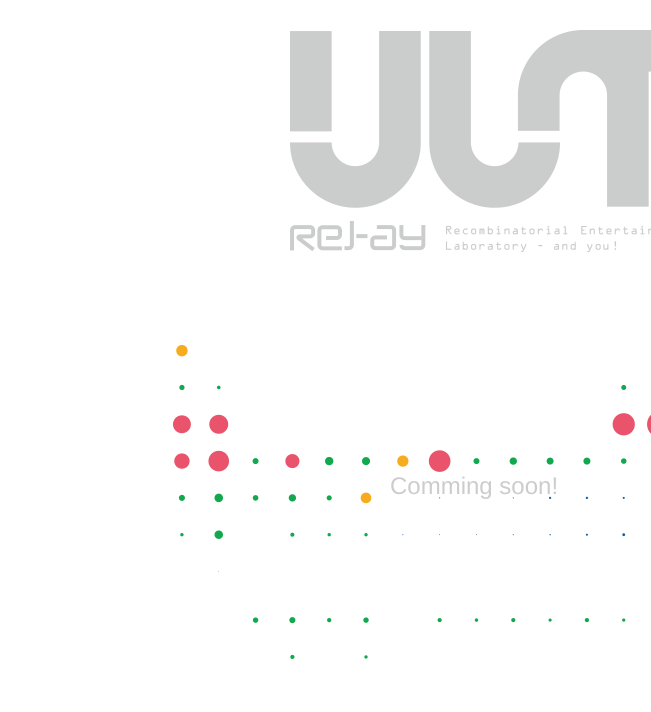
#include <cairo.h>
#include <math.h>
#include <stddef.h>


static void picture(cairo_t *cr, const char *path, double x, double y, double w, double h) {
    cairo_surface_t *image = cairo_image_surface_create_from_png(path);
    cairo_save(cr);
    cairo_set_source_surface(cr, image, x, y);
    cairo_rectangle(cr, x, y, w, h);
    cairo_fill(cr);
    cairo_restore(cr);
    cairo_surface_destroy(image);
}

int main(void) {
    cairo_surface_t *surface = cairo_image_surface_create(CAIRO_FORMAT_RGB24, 651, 712);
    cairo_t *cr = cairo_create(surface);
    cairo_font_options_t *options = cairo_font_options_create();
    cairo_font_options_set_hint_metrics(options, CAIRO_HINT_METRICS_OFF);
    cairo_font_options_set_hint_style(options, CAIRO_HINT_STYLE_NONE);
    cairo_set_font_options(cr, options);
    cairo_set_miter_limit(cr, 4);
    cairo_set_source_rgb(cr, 1, 1, 1);
    cairo_paint(cr);
    picture(cr, "img1.png", 290, 30, 361, 222);
    picture(cr, "img2.png", 173, 345, 478, 314);
    cairo_select_font_face(cr, "Liberation Sans", CAIRO_FONT_SLANT_NORMAL, CAIRO_FONT_WEIGHT_NORMAL);
    cairo_set_font_size(cr, 24);
    cairo_set_source_rgb(cr, 0.8, 0.8, 0.8);
    cairo_move_to(cr, 390, 494);
    cairo_show_text(cr, "Comming soon!");
    cairo_surface_write_to_png(surface, "page.png");
    cairo_font_options_destroy(options);
    cairo_destroy(cr);
    cairo_surface_destroy(surface);
    return 0;
}
